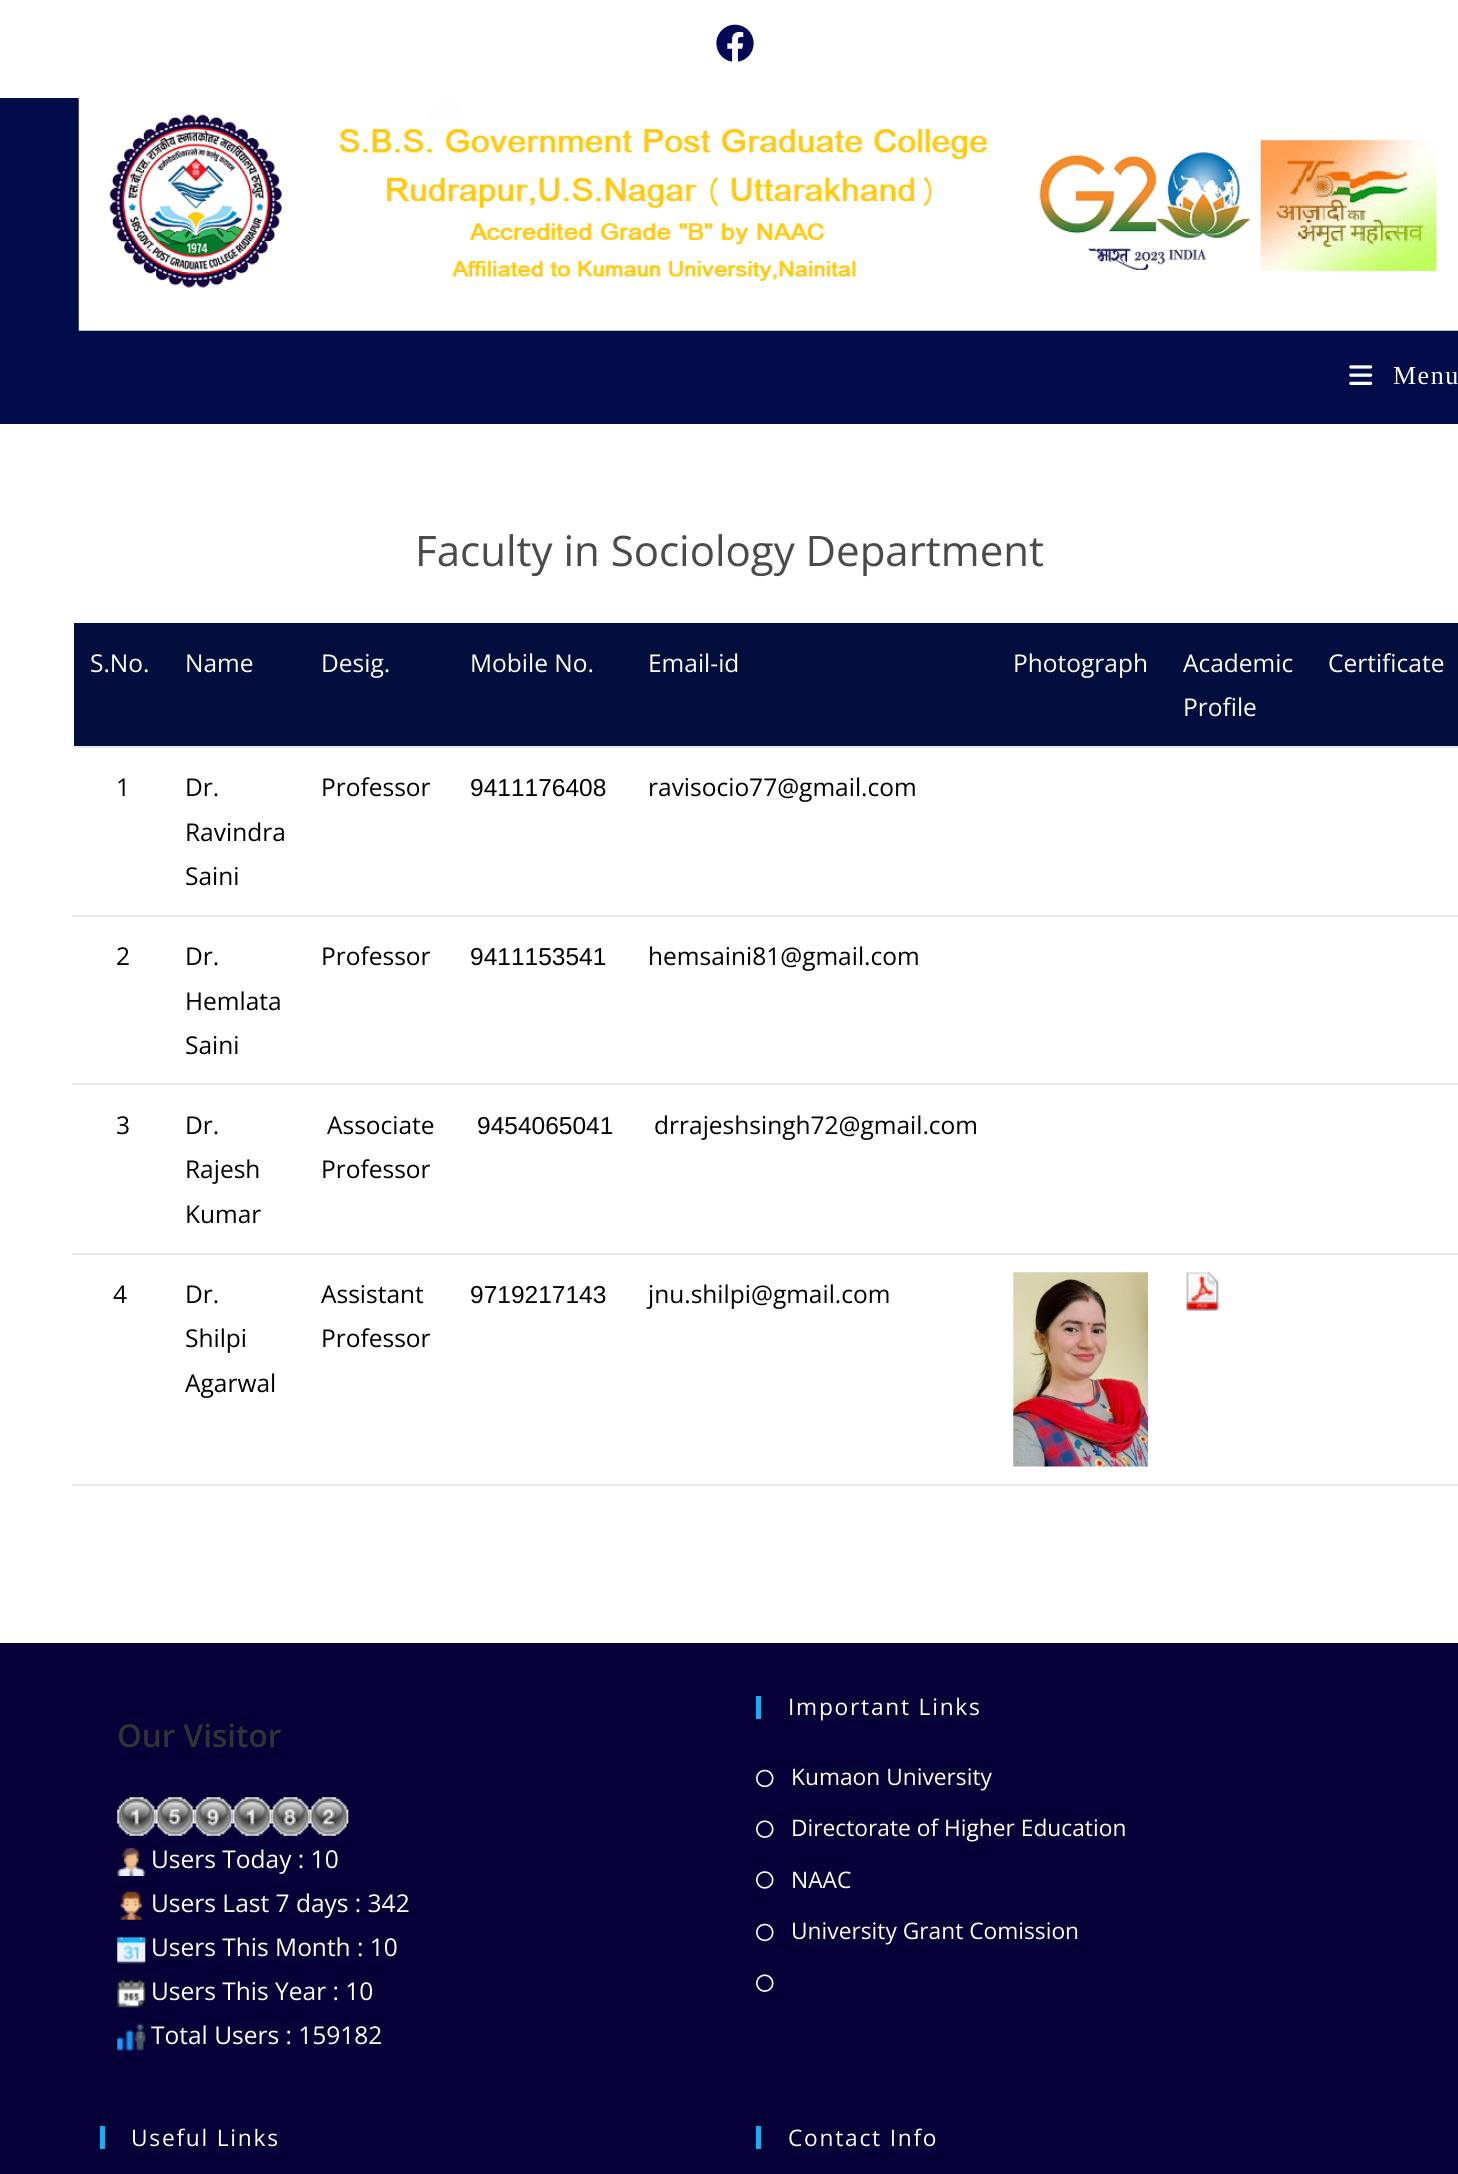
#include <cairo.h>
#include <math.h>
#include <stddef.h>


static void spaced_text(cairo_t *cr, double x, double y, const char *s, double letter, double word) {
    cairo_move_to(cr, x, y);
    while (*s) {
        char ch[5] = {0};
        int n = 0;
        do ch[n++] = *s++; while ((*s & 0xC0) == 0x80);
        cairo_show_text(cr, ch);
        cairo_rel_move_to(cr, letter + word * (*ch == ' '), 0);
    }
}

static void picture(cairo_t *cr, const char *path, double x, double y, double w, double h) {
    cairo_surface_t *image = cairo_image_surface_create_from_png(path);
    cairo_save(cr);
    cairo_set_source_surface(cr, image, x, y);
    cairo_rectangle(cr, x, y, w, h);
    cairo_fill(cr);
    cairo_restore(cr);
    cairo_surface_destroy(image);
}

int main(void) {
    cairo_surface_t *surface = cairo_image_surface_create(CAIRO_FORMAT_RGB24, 1458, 2174);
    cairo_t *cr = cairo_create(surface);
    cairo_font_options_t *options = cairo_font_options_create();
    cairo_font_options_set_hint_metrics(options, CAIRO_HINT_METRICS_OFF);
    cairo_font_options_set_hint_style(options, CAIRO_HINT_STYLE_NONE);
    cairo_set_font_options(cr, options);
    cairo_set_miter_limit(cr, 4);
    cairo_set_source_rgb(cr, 1, 1, 1);
    cairo_paint(cr);
    picture(cr, "img1.png", 716, 24, 38, 38);
    cairo_set_source_rgb(cr, 0.008, 0.047, 0.29);
    cairo_rectangle(cr, 0, 98, 1458, 326);
    cairo_fill(cr);
    picture(cr, "img2.png", 78, 98, 1380, 233);
    picture(cr, "img3.png", 1349, 365, 24, 20);
    cairo_select_font_face(cr, "Liberation Serif", CAIRO_FONT_SLANT_NORMAL, CAIRO_FONT_WEIGHT_NORMAL);
    cairo_set_font_size(cr, 26);
    cairo_set_source_rgb(cr, 1, 1, 1);
    spaced_text(cr, 1393, 384, "Menu", 1.5, 0);
    cairo_select_font_face(cr, "Open Sans", CAIRO_FONT_SLANT_NORMAL, CAIRO_FONT_WEIGHT_NORMAL);
    cairo_set_font_size(cr, 42);
    cairo_set_source_rgb(cr, 0.29, 0.29, 0.29);
    cairo_move_to(cr, 415, 566);
    cairo_show_text(cr, "Faculty in Sociology Department");
    cairo_set_source_rgb(cr, 0.008, 0.055, 0.239);
    cairo_rectangle(cr, 74, 623, 1384, 123);
    cairo_fill(cr);
    cairo_set_font_size(cr, 24.5);
    cairo_set_source_rgb(cr, 1, 1, 1);
    cairo_move_to(cr, 90, 672);
    cairo_show_text(cr, "S.No.");
    cairo_move_to(cr, 185, 672);
    cairo_show_text(cr, "Name");
    cairo_move_to(cr, 321, 672);
    cairo_show_text(cr, "Desig.");
    cairo_move_to(cr, 470, 672);
    cairo_show_text(cr, "Mobile No.");
    cairo_move_to(cr, 648, 672);
    cairo_show_text(cr, "Email-id");
    cairo_move_to(cr, 1013, 672);
    cairo_show_text(cr, "Photograph");
    cairo_move_to(cr, 1183, 672);
    cairo_show_text(cr, "Academic");
    cairo_move_to(cr, 1183, 716);
    cairo_show_text(cr, "Profile");
    cairo_set_source_rgb(cr, 0.914, 0.914, 0.914);
    cairo_rectangle(cr, 72, 746, 1386, 2);
    cairo_fill(cr);
    cairo_set_source_rgb(cr, 1, 1, 1);
    cairo_move_to(cr, 1328, 672);
    cairo_show_text(cr, "Certificate");
    cairo_set_source_rgb(cr, 0, 0, 0);
    cairo_move_to(cr, 116, 796);
    cairo_show_text(cr, "1");
    cairo_move_to(cr, 185, 796);
    cairo_show_text(cr, "Dr.");
    cairo_move_to(cr, 185, 841);
    cairo_show_text(cr, "Ravindra");
    cairo_move_to(cr, 185, 885);
    cairo_show_text(cr, "Saini");
    cairo_move_to(cr, 321, 796);
    cairo_show_text(cr, "Professor");
    cairo_select_font_face(cr, "Liberation Sans", CAIRO_FONT_SLANT_NORMAL, CAIRO_FONT_WEIGHT_NORMAL);
    cairo_move_to(cr, 470, 796);
    cairo_show_text(cr, "9411176408");
    cairo_select_font_face(cr, "Open Sans", CAIRO_FONT_SLANT_NORMAL, CAIRO_FONT_WEIGHT_NORMAL);
    cairo_move_to(cr, 648, 796);
    cairo_show_text(cr, "ravisocio77@gmail.com");
    cairo_set_source_rgb(cr, 0.914, 0.914, 0.914);
    cairo_rectangle(cr, 72, 915, 1386, 2);
    cairo_fill(cr);
    cairo_set_source_rgb(cr, 0, 0, 0);
    cairo_move_to(cr, 116, 965);
    cairo_show_text(cr, "2");
    cairo_move_to(cr, 185, 965);
    cairo_show_text(cr, "Dr.");
    cairo_move_to(cr, 185, 1010);
    cairo_show_text(cr, "Hemlata");
    cairo_move_to(cr, 185, 1054);
    cairo_show_text(cr, "Saini");
    cairo_move_to(cr, 321, 965);
    cairo_show_text(cr, "Professor");
    cairo_select_font_face(cr, "Liberation Sans", CAIRO_FONT_SLANT_NORMAL, CAIRO_FONT_WEIGHT_NORMAL);
    cairo_move_to(cr, 470, 965);
    cairo_show_text(cr, "9411153541");
    cairo_select_font_face(cr, "Open Sans", CAIRO_FONT_SLANT_NORMAL, CAIRO_FONT_WEIGHT_NORMAL);
    cairo_move_to(cr, 648, 965);
    cairo_show_text(cr, "hemsaini81@gmail.com");
    cairo_set_source_rgb(cr, 0.914, 0.914, 0.914);
    cairo_rectangle(cr, 72, 1083, 1386, 2);
    cairo_fill(cr);
    cairo_set_source_rgb(cr, 0, 0, 0);
    cairo_move_to(cr, 116, 1134);
    cairo_show_text(cr, "3");
    cairo_move_to(cr, 185, 1134);
    cairo_show_text(cr, "Dr.");
    cairo_move_to(cr, 185, 1178);
    cairo_show_text(cr, "Rajesh");
    cairo_move_to(cr, 185, 1223);
    cairo_show_text(cr, "Kumar");
    cairo_move_to(cr, 327, 1134);
    cairo_show_text(cr, "Associate");
    cairo_move_to(cr, 321, 1178);
    cairo_show_text(cr, "Professor");
    cairo_select_font_face(cr, "Liberation Sans", CAIRO_FONT_SLANT_NORMAL, CAIRO_FONT_WEIGHT_NORMAL);
    cairo_move_to(cr, 477, 1134);
    cairo_show_text(cr, "9454065041");
    cairo_select_font_face(cr, "Open Sans", CAIRO_FONT_SLANT_NORMAL, CAIRO_FONT_WEIGHT_NORMAL);
    cairo_move_to(cr, 654, 1134);
    cairo_show_text(cr, "drrajeshsingh72@gmail.com");
    cairo_set_source_rgb(cr, 0.914, 0.914, 0.914);
    cairo_rectangle(cr, 72, 1253, 1386, 2);
    cairo_fill(cr);
    cairo_set_source_rgb(cr, 0, 0, 0);
    cairo_move_to(cr, 113, 1303);
    cairo_show_text(cr, "4");
    cairo_move_to(cr, 185, 1303);
    cairo_show_text(cr, "Dr.");
    cairo_move_to(cr, 185, 1347);
    cairo_show_text(cr, "Shilpi");
    cairo_move_to(cr, 185, 1392);
    cairo_show_text(cr, "Agarwal");
    cairo_move_to(cr, 321, 1303);
    cairo_show_text(cr, "Assistant");
    cairo_move_to(cr, 321, 1347);
    cairo_show_text(cr, "Professor");
    cairo_select_font_face(cr, "Liberation Sans", CAIRO_FONT_SLANT_NORMAL, CAIRO_FONT_WEIGHT_NORMAL);
    cairo_move_to(cr, 470, 1303);
    cairo_show_text(cr, "9719217143");
    cairo_select_font_face(cr, "Open Sans", CAIRO_FONT_SLANT_NORMAL, CAIRO_FONT_WEIGHT_NORMAL);
    cairo_move_to(cr, 648, 1303);
    cairo_show_text(cr, "jnu.shilpi@gmail.com");
    picture(cr, "img4.png", 1013, 1272, 135, 195);
    picture(cr, "img5.png", 1186, 1272, 33, 39);
    cairo_set_source_rgb(cr, 0.914, 0.914, 0.914);
    cairo_rectangle(cr, 72, 1484, 1386, 2);
    cairo_fill(cr);
    cairo_set_source_rgb(cr, 0.031, 0, 0.22);
    cairo_rectangle(cr, 0, 1643, 1458, 531);
    cairo_fill(cr);
    cairo_select_font_face(cr, "Open Sans SemiBold", CAIRO_FONT_SLANT_NORMAL, CAIRO_FONT_WEIGHT_NORMAL);
    cairo_set_font_size(cr, 31.5);
    cairo_set_source_rgb(cr, 0.2, 0.2, 0.2);
    cairo_move_to(cr, 117, 1747);
    cairo_show_text(cr, "Our Visitor");
    picture(cr, "img6.png", 117, 1797, 39, 39);
    picture(cr, "img7.png", 155, 1797, 40, 39);
    picture(cr, "img8.png", 194, 1797, 39, 39);
    picture(cr, "img9.png", 232, 1797, 40, 39);
    picture(cr, "img10.png", 271, 1797, 39, 39);
    picture(cr, "img11.png", 309, 1797, 40, 39);
    picture(cr, "img12.png", 117, 1848, 29, 28);
    cairo_select_font_face(cr, "Open Sans", CAIRO_FONT_SLANT_NORMAL, CAIRO_FONT_WEIGHT_NORMAL);
    cairo_set_font_size(cr, 24.5);
    cairo_set_source_rgb(cr, 1, 1, 1);
    cairo_move_to(cr, 151, 1868);
    cairo_show_text(cr, "Users Today : 10");
    picture(cr, "img13.png", 120, 1891, 23, 29);
    cairo_move_to(cr, 151, 1912);
    cairo_show_text(cr, "Users Last 7 days : 342");
    picture(cr, "img14.png", 117, 1935, 29, 29);
    cairo_move_to(cr, 151, 1956);
    cairo_show_text(cr, "Users This Month : 10");
    picture(cr, "img15.png", 117, 1979, 29, 29);
    cairo_move_to(cr, 151, 2000);
    cairo_show_text(cr, "Users This Year : 10");
    picture(cr, "img16.png", 117, 2023, 29, 28);
    cairo_move_to(cr, 151, 2044);
    cairo_show_text(cr, "Total Users : 159182");
    cairo_set_source_rgb(cr, 0.075, 0.686, 0.941);
    cairo_rectangle(cr, 756, 1696, 5, 23);
    cairo_fill(cr);
    cairo_set_font_size(cr, 22.75);
    cairo_set_source_rgb(cr, 1, 1, 1);
    spaced_text(cr, 788, 1715, "Important Links", 1.75, 0);
    picture(cr, "img17.png", 756, 1769, 18, 19);
    cairo_move_to(cr, 791, 1785);
    cairo_show_text(cr, "Kumaon University");
    picture(cr, "img18.png", 756, 1820, 18, 18);
    cairo_move_to(cr, 791, 1836);
    cairo_show_text(cr, "Directorate of Higher Education");
    picture(cr, "img19.png", 756, 1871, 18, 18);
    cairo_move_to(cr, 791, 1888);
    cairo_show_text(cr, "NAAC");
    picture(cr, "img17.png", 756, 1923, 18, 19);
    cairo_move_to(cr, 791, 1939);
    cairo_show_text(cr, "University Grant Comission");
    picture(cr, "img18.png", 756, 1974, 18, 18);
    cairo_set_source_rgb(cr, 0.075, 0.686, 0.941);
    cairo_rectangle(cr, 100, 2126, 5, 23);
    cairo_fill(cr);
    cairo_set_source_rgb(cr, 1, 1, 1);
    spaced_text(cr, 131, 2146, "Useful Links", 1.75, 0);
    cairo_set_source_rgb(cr, 0.075, 0.686, 0.941);
    cairo_rectangle(cr, 756, 2126, 5, 23);
    cairo_fill(cr);
    cairo_set_source_rgb(cr, 1, 1, 1);
    spaced_text(cr, 788, 2146, "Contact Info", 1.75, 0);
    cairo_surface_write_to_png(surface, "page.png");
    cairo_font_options_destroy(options);
    cairo_destroy(cr);
    cairo_surface_destroy(surface);
    return 0;
}
